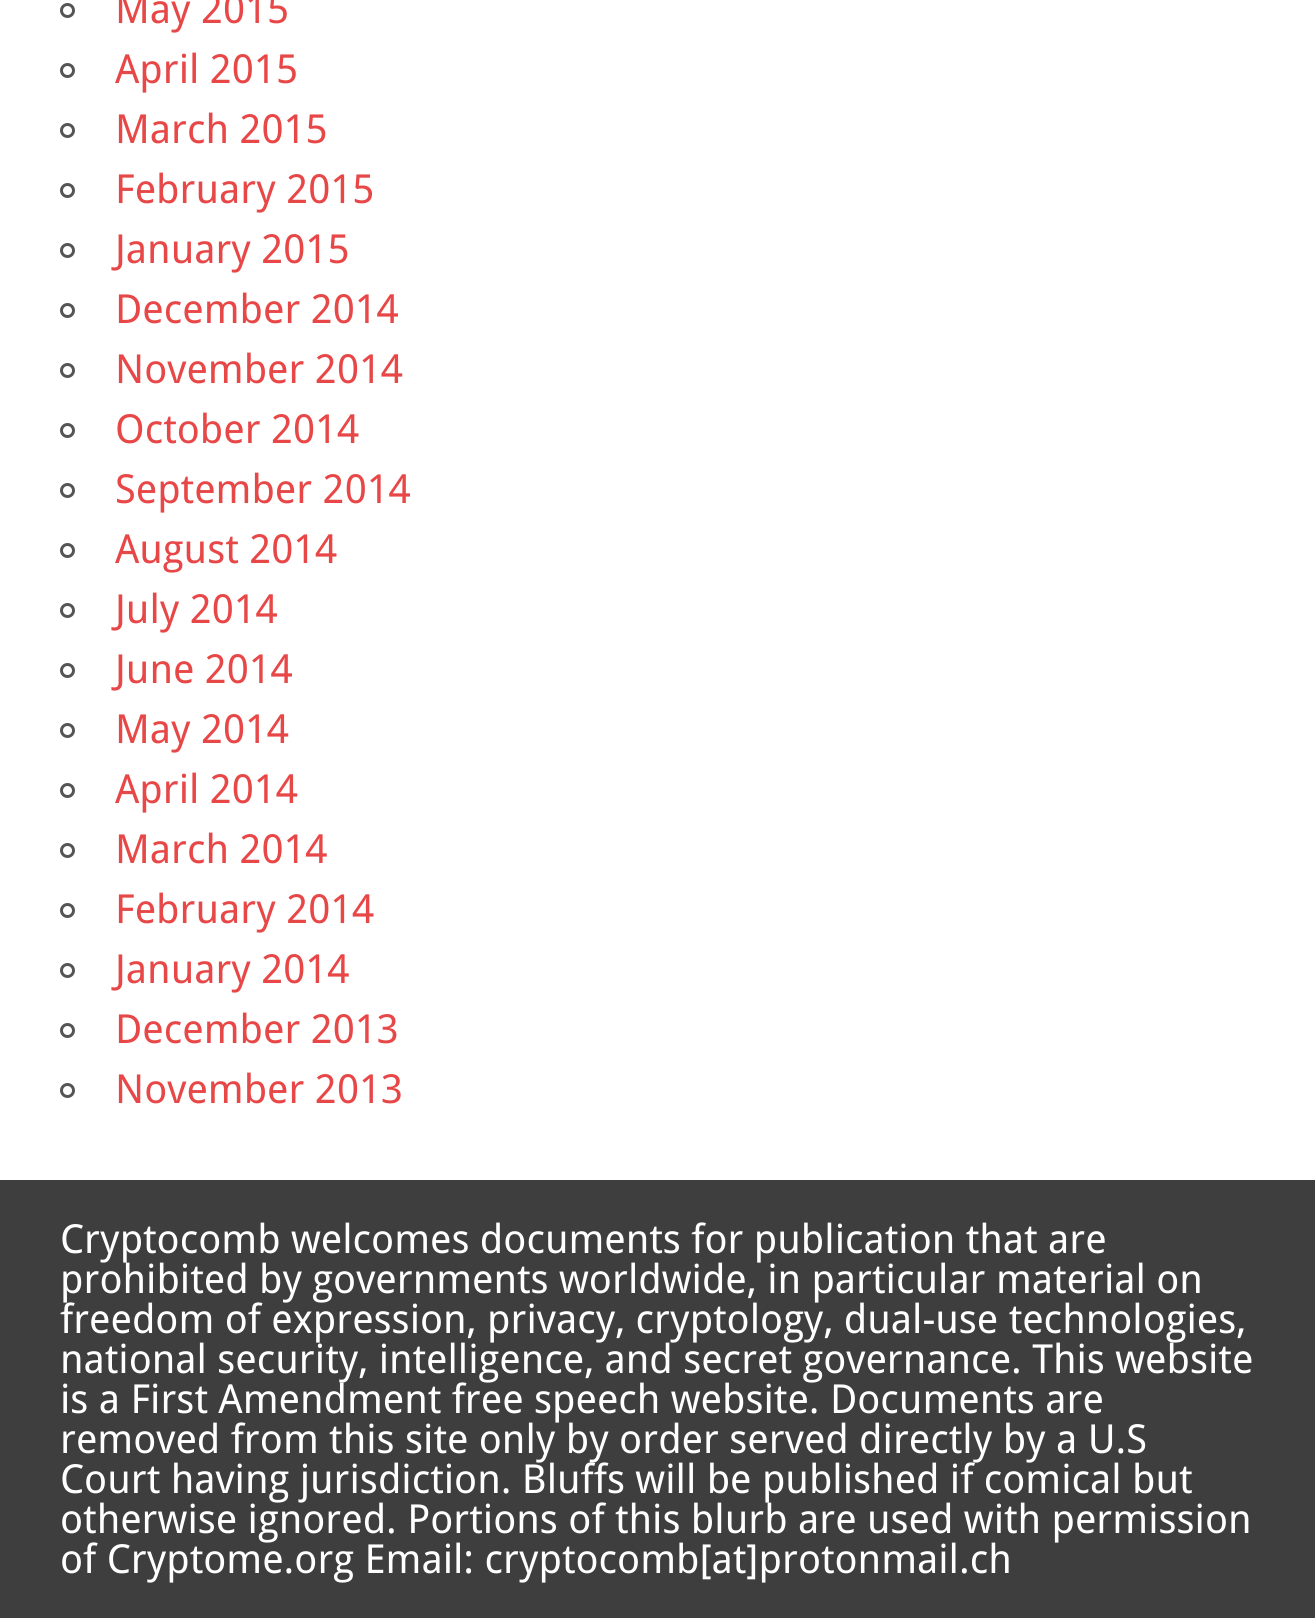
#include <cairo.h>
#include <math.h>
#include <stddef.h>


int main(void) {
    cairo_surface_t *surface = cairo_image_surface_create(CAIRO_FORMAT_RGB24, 1315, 1618);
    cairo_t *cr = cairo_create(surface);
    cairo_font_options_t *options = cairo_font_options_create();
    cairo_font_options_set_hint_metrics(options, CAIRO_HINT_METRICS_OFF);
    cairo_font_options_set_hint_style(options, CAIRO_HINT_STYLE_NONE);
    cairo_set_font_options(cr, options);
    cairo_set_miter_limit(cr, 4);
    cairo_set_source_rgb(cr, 1, 1, 1);
    cairo_paint(cr);
    cairo_arc(cr, 67.5, 10.5, 6, 0, 2 * M_PI);
    cairo_set_source_rgb(cr, 0.333, 0.333, 0.333);
    cairo_set_line_width(cr, 3);
    cairo_stroke(cr);
    cairo_select_font_face(cr, "Droid Sans", CAIRO_FONT_SLANT_NORMAL, CAIRO_FONT_WEIGHT_NORMAL);
    cairo_set_font_size(cr, 40);
    cairo_set_source_rgb(cr, 0.91, 0.278, 0.278);
    cairo_move_to(cr, 115, 23);
    cairo_show_text(cr, "May 2015");
    cairo_new_path(cr);
    cairo_arc(cr, 67.5, 70.5, 6, 0, 2 * M_PI);
    cairo_set_source_rgb(cr, 0.333, 0.333, 0.333);
    cairo_stroke(cr);
    cairo_set_source_rgb(cr, 0.91, 0.278, 0.278);
    cairo_move_to(cr, 115, 83);
    cairo_show_text(cr, "April 2015");
    cairo_new_path(cr);
    cairo_arc(cr, 67.5, 130.5, 6, 0, 2 * M_PI);
    cairo_set_source_rgb(cr, 0.333, 0.333, 0.333);
    cairo_stroke(cr);
    cairo_set_source_rgb(cr, 0.91, 0.278, 0.278);
    cairo_move_to(cr, 115, 143);
    cairo_show_text(cr, "March 2015");
    cairo_new_path(cr);
    cairo_arc(cr, 67.5, 190.5, 6, 0, 2 * M_PI);
    cairo_set_source_rgb(cr, 0.333, 0.333, 0.333);
    cairo_stroke(cr);
    cairo_set_source_rgb(cr, 0.91, 0.278, 0.278);
    cairo_move_to(cr, 115, 203);
    cairo_show_text(cr, "February 2015");
    cairo_new_path(cr);
    cairo_arc(cr, 67.5, 250.5, 6, 0, 2 * M_PI);
    cairo_set_source_rgb(cr, 0.333, 0.333, 0.333);
    cairo_stroke(cr);
    cairo_set_source_rgb(cr, 0.91, 0.278, 0.278);
    cairo_move_to(cr, 115, 263);
    cairo_show_text(cr, "January 2015");
    cairo_new_path(cr);
    cairo_arc(cr, 67.5, 310.5, 6, 0, 2 * M_PI);
    cairo_set_source_rgb(cr, 0.333, 0.333, 0.333);
    cairo_stroke(cr);
    cairo_set_source_rgb(cr, 0.91, 0.278, 0.278);
    cairo_move_to(cr, 115, 323);
    cairo_show_text(cr, "December 2014");
    cairo_new_path(cr);
    cairo_arc(cr, 67.5, 370.5, 6, 0, 2 * M_PI);
    cairo_set_source_rgb(cr, 0.333, 0.333, 0.333);
    cairo_stroke(cr);
    cairo_set_source_rgb(cr, 0.91, 0.278, 0.278);
    cairo_move_to(cr, 115, 383);
    cairo_show_text(cr, "November 2014");
    cairo_new_path(cr);
    cairo_arc(cr, 67.5, 430.5, 6, 0, 2 * M_PI);
    cairo_set_source_rgb(cr, 0.333, 0.333, 0.333);
    cairo_stroke(cr);
    cairo_set_source_rgb(cr, 0.91, 0.278, 0.278);
    cairo_move_to(cr, 115, 443);
    cairo_show_text(cr, "October 2014");
    cairo_new_path(cr);
    cairo_arc(cr, 67.5, 490.5, 6, 0, 2 * M_PI);
    cairo_set_source_rgb(cr, 0.333, 0.333, 0.333);
    cairo_stroke(cr);
    cairo_set_source_rgb(cr, 0.91, 0.278, 0.278);
    cairo_move_to(cr, 115, 503);
    cairo_show_text(cr, "September 2014");
    cairo_new_path(cr);
    cairo_arc(cr, 67.5, 550.5, 6, 0, 2 * M_PI);
    cairo_set_source_rgb(cr, 0.333, 0.333, 0.333);
    cairo_stroke(cr);
    cairo_set_source_rgb(cr, 0.91, 0.278, 0.278);
    cairo_move_to(cr, 115, 563);
    cairo_show_text(cr, "August 2014");
    cairo_new_path(cr);
    cairo_arc(cr, 67.5, 610.5, 6, 0, 2 * M_PI);
    cairo_set_source_rgb(cr, 0.333, 0.333, 0.333);
    cairo_stroke(cr);
    cairo_set_source_rgb(cr, 0.91, 0.278, 0.278);
    cairo_move_to(cr, 115, 623);
    cairo_show_text(cr, "July 2014");
    cairo_new_path(cr);
    cairo_arc(cr, 67.5, 670.5, 6, 0, 2 * M_PI);
    cairo_set_source_rgb(cr, 0.333, 0.333, 0.333);
    cairo_stroke(cr);
    cairo_set_source_rgb(cr, 0.91, 0.278, 0.278);
    cairo_move_to(cr, 115, 683);
    cairo_show_text(cr, "June 2014");
    cairo_new_path(cr);
    cairo_arc(cr, 67.5, 730.5, 6, 0, 2 * M_PI);
    cairo_set_source_rgb(cr, 0.333, 0.333, 0.333);
    cairo_stroke(cr);
    cairo_set_source_rgb(cr, 0.91, 0.278, 0.278);
    cairo_move_to(cr, 115, 743);
    cairo_show_text(cr, "May 2014");
    cairo_new_path(cr);
    cairo_arc(cr, 67.5, 790.5, 6, 0, 2 * M_PI);
    cairo_set_source_rgb(cr, 0.333, 0.333, 0.333);
    cairo_stroke(cr);
    cairo_set_source_rgb(cr, 0.91, 0.278, 0.278);
    cairo_move_to(cr, 115, 803);
    cairo_show_text(cr, "April 2014");
    cairo_new_path(cr);
    cairo_arc(cr, 67.5, 850.5, 6, 0, 2 * M_PI);
    cairo_set_source_rgb(cr, 0.333, 0.333, 0.333);
    cairo_stroke(cr);
    cairo_set_source_rgb(cr, 0.91, 0.278, 0.278);
    cairo_move_to(cr, 115, 863);
    cairo_show_text(cr, "March 2014");
    cairo_new_path(cr);
    cairo_arc(cr, 67.5, 910.5, 6, 0, 2 * M_PI);
    cairo_set_source_rgb(cr, 0.333, 0.333, 0.333);
    cairo_stroke(cr);
    cairo_set_source_rgb(cr, 0.91, 0.278, 0.278);
    cairo_move_to(cr, 115, 923);
    cairo_show_text(cr, "February 2014");
    cairo_new_path(cr);
    cairo_arc(cr, 67.5, 970.5, 6, 0, 2 * M_PI);
    cairo_set_source_rgb(cr, 0.333, 0.333, 0.333);
    cairo_stroke(cr);
    cairo_set_source_rgb(cr, 0.91, 0.278, 0.278);
    cairo_move_to(cr, 115, 983);
    cairo_show_text(cr, "January 2014");
    cairo_new_path(cr);
    cairo_arc(cr, 67.5, 1030.5, 6, 0, 2 * M_PI);
    cairo_set_source_rgb(cr, 0.333, 0.333, 0.333);
    cairo_stroke(cr);
    cairo_set_source_rgb(cr, 0.91, 0.278, 0.278);
    cairo_move_to(cr, 115, 1043);
    cairo_show_text(cr, "December 2013");
    cairo_new_path(cr);
    cairo_arc(cr, 67.5, 1090.5, 6, 0, 2 * M_PI);
    cairo_set_source_rgb(cr, 0.333, 0.333, 0.333);
    cairo_stroke(cr);
    cairo_set_source_rgb(cr, 0.91, 0.278, 0.278);
    cairo_move_to(cr, 115, 1103);
    cairo_show_text(cr, "November 2013");
    cairo_set_source_rgb(cr, 0.243, 0.243, 0.243);
    cairo_rectangle(cr, 0, 1180, 1315, 438);
    cairo_fill(cr);
    cairo_set_source_rgb(cr, 1, 1, 1);
    cairo_move_to(cr, 60, 1253);
    cairo_show_text(cr, "Cryptocomb welcomes documents for publication that are");
    cairo_move_to(cr, 60, 1293);
    cairo_show_text(cr, "prohibited by governments worldwide, in particular material on");
    cairo_move_to(cr, 60, 1333);
    cairo_show_text(cr, "freedom of expression, privacy, cryptology, dual-use technologies,");
    cairo_move_to(cr, 60, 1373);
    cairo_show_text(cr, "national security, intelligence, and secret governance. This website");
    cairo_move_to(cr, 60, 1413);
    cairo_show_text(cr, "is a First Amendment free speech website. Documents are");
    cairo_move_to(cr, 60, 1453);
    cairo_show_text(cr, "removed from this site only by order served directly by a U.S");
    cairo_move_to(cr, 60, 1493);
    cairo_show_text(cr, "Court having jurisdiction. Bluffs will be published if comical but");
    cairo_move_to(cr, 60, 1533);
    cairo_show_text(cr, "otherwise ignored. Portions of this blurb are used with permission");
    cairo_move_to(cr, 60, 1573);
    cairo_show_text(cr, "of Cryptome.org Email: cryptocomb[at]protonmail.ch");
    cairo_surface_write_to_png(surface, "page.png");
    cairo_font_options_destroy(options);
    cairo_destroy(cr);
    cairo_surface_destroy(surface);
    return 0;
}
